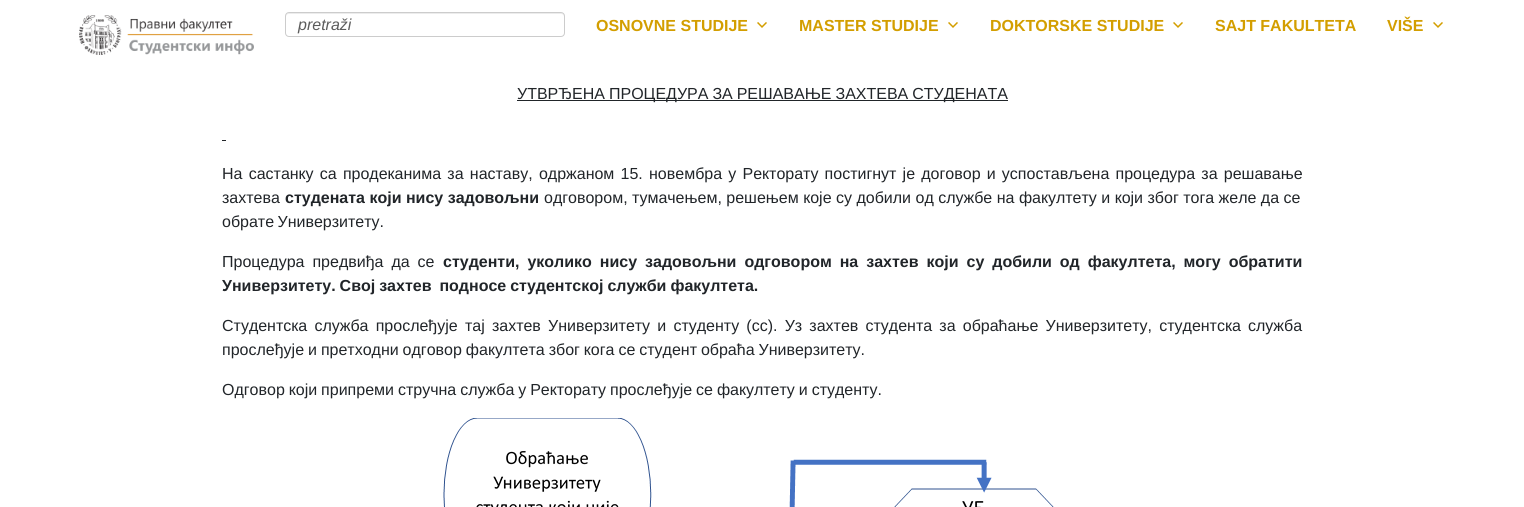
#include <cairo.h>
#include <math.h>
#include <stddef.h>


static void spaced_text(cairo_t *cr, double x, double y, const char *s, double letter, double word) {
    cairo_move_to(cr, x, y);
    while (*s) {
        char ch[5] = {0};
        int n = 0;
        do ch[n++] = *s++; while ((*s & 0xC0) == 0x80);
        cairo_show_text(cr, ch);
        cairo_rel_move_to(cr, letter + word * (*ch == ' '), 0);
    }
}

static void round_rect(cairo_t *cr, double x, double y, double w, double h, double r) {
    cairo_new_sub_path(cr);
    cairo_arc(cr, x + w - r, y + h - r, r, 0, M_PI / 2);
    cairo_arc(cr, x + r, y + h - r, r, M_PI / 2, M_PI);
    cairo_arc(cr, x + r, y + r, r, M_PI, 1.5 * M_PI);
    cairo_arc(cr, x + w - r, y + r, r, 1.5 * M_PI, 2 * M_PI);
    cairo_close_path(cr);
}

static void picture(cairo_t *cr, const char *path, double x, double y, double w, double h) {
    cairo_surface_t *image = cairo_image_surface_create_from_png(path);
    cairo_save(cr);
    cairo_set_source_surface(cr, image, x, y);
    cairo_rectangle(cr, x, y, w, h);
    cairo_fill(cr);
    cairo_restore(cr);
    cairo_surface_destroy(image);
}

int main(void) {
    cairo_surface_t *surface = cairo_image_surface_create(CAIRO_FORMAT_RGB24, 1524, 507);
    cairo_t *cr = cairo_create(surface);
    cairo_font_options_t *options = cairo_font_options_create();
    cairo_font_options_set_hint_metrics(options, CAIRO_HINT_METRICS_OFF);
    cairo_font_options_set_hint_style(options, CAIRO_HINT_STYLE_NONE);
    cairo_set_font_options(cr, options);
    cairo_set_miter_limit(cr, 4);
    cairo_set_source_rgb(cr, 1, 1, 1);
    cairo_paint(cr);
    picture(cr, "img1.png", 79, 15, 175, 40);
    cairo_set_source_rgb(cr, 0.925, 0.925, 0.925);
    cairo_new_path(cr);
    cairo_move_to(cr, 289, 14);
    cairo_line_to(cr, 561, 14);
    cairo_curve_to(cr, 563, 14, 564, 15, 564, 17);
    cairo_line_to(cr, 564, 16);
    cairo_curve_to(cr, 564, 14, 563, 13, 561, 13);
    cairo_line_to(cr, 289, 13);
    cairo_curve_to(cr, 287, 13, 286, 14, 286, 16);
    cairo_line_to(cr, 286, 17);
    cairo_curve_to(cr, 286, 15, 287, 14, 289, 14);
    cairo_close_path(cr);
    cairo_fill(cr);
    round_rect(cr, 285.5, 12.5, 279, 24, 3.5);
    cairo_set_source_rgb(cr, 0.8, 0.8, 0.8);
    cairo_set_line_width(cr, 1);
    cairo_stroke(cr);
    cairo_select_font_face(cr, "Liberation Sans", CAIRO_FONT_SLANT_ITALIC, CAIRO_FONT_WEIGHT_NORMAL);
    cairo_set_font_size(cr, 16);
    cairo_set_source_rgb(cr, 0.361, 0.361, 0.361);
    cairo_move_to(cr, 298, 30);
    cairo_show_text(cr, "pretraži");
    cairo_select_font_face(cr, "Liberation Sans", CAIRO_FONT_SLANT_NORMAL, CAIRO_FONT_WEIGHT_BOLD);
    cairo_set_source_rgb(cr, 0.827, 0.62, 0);
    cairo_move_to(cr, 596, 31);
    cairo_show_text(cr, "OSNOVNE STUDIJE");
    picture(cr, "img2.png", 757, 22, 10, 6);
    cairo_move_to(cr, 799, 31);
    cairo_show_text(cr, "MASTER STUDIJE");
    picture(cr, "img2.png", 948, 22, 10, 6);
    cairo_move_to(cr, 990, 31);
    cairo_show_text(cr, "DOKTORSKE STUDIJE");
    picture(cr, "img2.png", 1173, 22, 10, 6);
    cairo_move_to(cr, 1215, 31);
    cairo_show_text(cr, "SAJT FAKULTETA");
    cairo_move_to(cr, 1387, 31);
    cairo_show_text(cr, "VIŠE");
    picture(cr, "img2.png", 1433, 22, 10, 6);
    cairo_set_source_rgb(cr, 0.129, 0.145, 0.161);
    cairo_rectangle(cr, 517, 100, 491, 1);
    cairo_fill(cr);
    cairo_select_font_face(cr, "Liberation Sans", CAIRO_FONT_SLANT_NORMAL, CAIRO_FONT_WEIGHT_NORMAL);
    spaced_text(cr, 517, 99, "УТВРЂЕНА ПРОЦЕДУРА ЗА РЕШАВАЊЕ ЗАХТЕВА СТУДЕНАТА", 0, -0.5);
    cairo_rectangle(cr, 222, 140, 4, 1);
    cairo_fill(cr);
    spaced_text(cr, 222, 179, "На састанку са продеканима за наставу, одржаном 15. новембра у Ректорату постигнут је договор и успостављена процедура за решавање", 0, 1.75);
    cairo_move_to(cr, 222, 203);
    cairo_show_text(cr, "захтева");
    cairo_select_font_face(cr, "Liberation Sans", CAIRO_FONT_SLANT_NORMAL, CAIRO_FONT_WEIGHT_BOLD);
    cairo_move_to(cr, 285, 203);
    cairo_show_text(cr, "студената који нису задовољни");
    cairo_select_font_face(cr, "Liberation Sans", CAIRO_FONT_SLANT_NORMAL, CAIRO_FONT_WEIGHT_NORMAL);
    cairo_move_to(cr, 544, 203);
    cairo_show_text(cr, "одговором, тумачењем, решењем које су добили од службе на факултету и који због тога желе да се");
    spaced_text(cr, 222, 227, "обрате Универзитету.", 0, -1);
    spaced_text(cr, 222, 267, "Процедура предвиђа да се", 0, 3.5);
    cairo_select_font_face(cr, "Liberation Sans", CAIRO_FONT_SLANT_NORMAL, CAIRO_FONT_WEIGHT_BOLD);
    spaced_text(cr, 443, 267, "студенти, уколико нису задовољни одговором на захтев који су добили од факултета, могу обратити", 0, 3.5);
    spaced_text(cr, 222, 291, "Универзитету. Свој захтев  подносе студентској служби факултета.", 0, -0.5);
    cairo_select_font_face(cr, "Liberation Sans", CAIRO_FONT_SLANT_NORMAL, CAIRO_FONT_WEIGHT_NORMAL);
    spaced_text(cr, 222, 331, "Студентска служба прослеђује тај захтев Универзитету и студенту (cc). Уз захтев студента за обраћање Универзитету, студентска служба", 0, 2.75);
    spaced_text(cr, 222, 355, "прослеђује и претходни одговор факултета због кога се студент обраћа Универзитету.", 0, -0.5);
    spaced_text(cr, 222, 395, "Одговор који припреми стручна служба у Ректорату прослеђује се факултету и студенту.", 0, -0.5);
    picture(cr, "img3.png", 443, 418, 611, 89);
    cairo_surface_write_to_png(surface, "page.png");
    cairo_font_options_destroy(options);
    cairo_destroy(cr);
    cairo_surface_destroy(surface);
    return 0;
}
